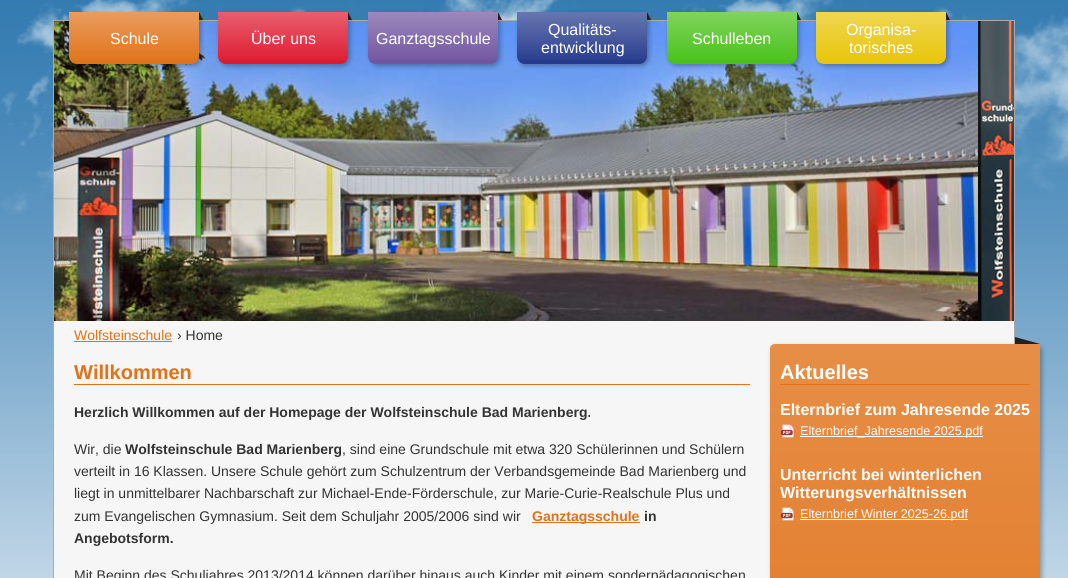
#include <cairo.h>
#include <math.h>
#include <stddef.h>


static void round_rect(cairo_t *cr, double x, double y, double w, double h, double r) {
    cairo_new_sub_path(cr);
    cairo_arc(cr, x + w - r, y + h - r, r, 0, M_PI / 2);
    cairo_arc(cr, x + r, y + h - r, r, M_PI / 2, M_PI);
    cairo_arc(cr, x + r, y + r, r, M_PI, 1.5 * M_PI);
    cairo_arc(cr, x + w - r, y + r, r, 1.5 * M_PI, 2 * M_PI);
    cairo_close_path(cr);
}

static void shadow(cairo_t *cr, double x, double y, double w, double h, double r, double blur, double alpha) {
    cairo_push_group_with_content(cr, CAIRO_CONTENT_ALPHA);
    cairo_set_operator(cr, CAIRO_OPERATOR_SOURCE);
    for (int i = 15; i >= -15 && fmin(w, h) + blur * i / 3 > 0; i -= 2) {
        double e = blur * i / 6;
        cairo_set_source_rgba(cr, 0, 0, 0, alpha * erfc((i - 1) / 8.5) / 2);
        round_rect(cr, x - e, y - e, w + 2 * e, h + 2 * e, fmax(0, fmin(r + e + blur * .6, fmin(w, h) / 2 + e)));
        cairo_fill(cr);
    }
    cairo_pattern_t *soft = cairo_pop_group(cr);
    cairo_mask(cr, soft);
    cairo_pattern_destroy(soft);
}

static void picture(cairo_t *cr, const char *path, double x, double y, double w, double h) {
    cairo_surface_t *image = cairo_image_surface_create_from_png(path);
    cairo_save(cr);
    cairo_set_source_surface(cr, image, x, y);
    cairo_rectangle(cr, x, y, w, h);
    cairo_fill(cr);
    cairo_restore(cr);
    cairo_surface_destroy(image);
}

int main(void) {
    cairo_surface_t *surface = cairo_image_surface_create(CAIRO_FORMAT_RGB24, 1068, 578);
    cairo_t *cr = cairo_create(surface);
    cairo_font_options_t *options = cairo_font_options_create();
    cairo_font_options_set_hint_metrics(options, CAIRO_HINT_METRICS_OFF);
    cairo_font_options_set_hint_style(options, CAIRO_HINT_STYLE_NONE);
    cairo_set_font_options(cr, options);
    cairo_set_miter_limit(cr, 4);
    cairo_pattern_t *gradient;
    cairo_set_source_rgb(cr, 1, 1, 1);
    cairo_paint(cr);
    picture(cr, "img1.png", 0, 0, 1068, 578);
    picture(cr, "img2.png", 1, 0, 1067, 215);
    cairo_set_source_rgb(cr, 0.961, 0.961, 0.961);
    cairo_rectangle(cr, 54, 321, 960, 257);
    cairo_fill(cr);
    cairo_rectangle(cr, 53.5, 20.5, 961, 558);
    cairo_set_source_rgb(cr, 0.667, 0.667, 0.667);
    cairo_set_line_width(cr, 1);
    cairo_stroke(cr);
    picture(cr, "img3.png", 54, 21, 924, 300);
    cairo_set_source_rgb(cr, 0, 0, 0);
    shadow(cr, 71, 14, 130, 52, 8, 2.5, 0.3);
    cairo_set_source_rgb(cr, 0.878, 0.447, 0.098);
    cairo_new_path(cr);
    cairo_move_to(cr, 69, 12);
    cairo_line_to(cr, 199, 12);
    cairo_line_to(cr, 199, 56);
    cairo_curve_to(cr, 199, 60.5, 195.5, 64, 191, 64);
    cairo_line_to(cr, 77, 64);
    cairo_curve_to(cr, 72.5, 64, 69, 60.5, 69, 56);
    cairo_close_path(cr);
    cairo_fill(cr);
    gradient = cairo_pattern_create_linear(134, 12, 134, 64);
    cairo_pattern_add_color_stop_rgba(gradient, 0, 1, 1, 1, 0.3);
    cairo_pattern_add_color_stop_rgba(gradient, 1, 1, 1, 1, 0);
    cairo_set_source(cr, gradient);
    cairo_pattern_destroy(gradient);
    cairo_rectangle(cr, 69, 12, 130, 48);
    cairo_fill(cr);
    cairo_set_source_rgb(cr, 0.133, 0.133, 0.133);
    cairo_new_path(cr);
    cairo_move_to(cr, 199, 20);
    cairo_line_to(cr, 199, 12);
    cairo_line_to(cr, 203, 20);
    cairo_close_path(cr);
    cairo_fill(cr);
    cairo_select_font_face(cr, "Liberation Sans", CAIRO_FONT_SLANT_NORMAL, CAIRO_FONT_WEIGHT_NORMAL);
    cairo_set_font_size(cr, 16);
    cairo_set_source_rgb(cr, 1, 1, 1);
    cairo_move_to(cr, 110, 44);
    cairo_show_text(cr, "Schule");
    cairo_set_source_rgb(cr, 0, 0, 0);
    shadow(cr, 220, 14, 130, 52, 8, 2.5, 0.3);
    cairo_set_source_rgb(cr, 0.871, 0.102, 0.188);
    cairo_new_path(cr);
    cairo_move_to(cr, 218, 12);
    cairo_line_to(cr, 348, 12);
    cairo_line_to(cr, 348, 56);
    cairo_curve_to(cr, 348, 60.5, 344.5, 64, 340, 64);
    cairo_line_to(cr, 226, 64);
    cairo_curve_to(cr, 221.5, 64, 218, 60.5, 218, 56);
    cairo_close_path(cr);
    cairo_fill(cr);
    gradient = cairo_pattern_create_linear(283, 12, 283, 64);
    cairo_pattern_add_color_stop_rgba(gradient, 0, 1, 1, 1, 0.3);
    cairo_pattern_add_color_stop_rgba(gradient, 1, 1, 1, 1, 0);
    cairo_set_source(cr, gradient);
    cairo_pattern_destroy(gradient);
    cairo_rectangle(cr, 218, 12, 130, 48);
    cairo_fill(cr);
    cairo_set_source_rgb(cr, 0.133, 0.133, 0.133);
    cairo_new_path(cr);
    cairo_move_to(cr, 348, 20);
    cairo_line_to(cr, 348, 12);
    cairo_line_to(cr, 352, 20);
    cairo_close_path(cr);
    cairo_fill(cr);
    cairo_set_source_rgb(cr, 1, 1, 1);
    cairo_move_to(cr, 251, 44);
    cairo_show_text(cr, "Über uns");
    cairo_set_source_rgb(cr, 0, 0, 0);
    shadow(cr, 370, 14, 130, 52, 8, 2.5, 0.3);
    cairo_set_source_rgb(cr, 0.443, 0.333, 0.627);
    cairo_new_path(cr);
    cairo_move_to(cr, 368, 12);
    cairo_line_to(cr, 498, 12);
    cairo_line_to(cr, 498, 56);
    cairo_curve_to(cr, 498, 60.5, 494.5, 64, 490, 64);
    cairo_line_to(cr, 376, 64);
    cairo_curve_to(cr, 371.5, 64, 368, 60.5, 368, 56);
    cairo_close_path(cr);
    cairo_fill(cr);
    gradient = cairo_pattern_create_linear(433, 12, 433, 64);
    cairo_pattern_add_color_stop_rgba(gradient, 0, 1, 1, 1, 0.3);
    cairo_pattern_add_color_stop_rgba(gradient, 1, 1, 1, 1, 0);
    cairo_set_source(cr, gradient);
    cairo_pattern_destroy(gradient);
    cairo_rectangle(cr, 368, 12, 130, 48);
    cairo_fill(cr);
    cairo_set_source_rgb(cr, 0.133, 0.133, 0.133);
    cairo_new_path(cr);
    cairo_move_to(cr, 498, 20);
    cairo_line_to(cr, 498, 12);
    cairo_line_to(cr, 502, 20);
    cairo_close_path(cr);
    cairo_fill(cr);
    cairo_set_source_rgb(cr, 1, 1, 1);
    cairo_move_to(cr, 376, 44);
    cairo_show_text(cr, "Ganztagsschule");
    cairo_set_source_rgb(cr, 0, 0, 0);
    shadow(cr, 519, 14, 130, 52, 8, 2.5, 0.3);
    cairo_set_source_rgb(cr, 0.153, 0.231, 0.553);
    cairo_new_path(cr);
    cairo_move_to(cr, 517, 12);
    cairo_line_to(cr, 647, 12);
    cairo_line_to(cr, 647, 56);
    cairo_curve_to(cr, 647, 60.5, 643.5, 64, 639, 64);
    cairo_line_to(cr, 525, 64);
    cairo_curve_to(cr, 520.5, 64, 517, 60.5, 517, 56);
    cairo_close_path(cr);
    cairo_fill(cr);
    gradient = cairo_pattern_create_linear(582, 12, 582, 64);
    cairo_pattern_add_color_stop_rgba(gradient, 0, 1, 1, 1, 0.3);
    cairo_pattern_add_color_stop_rgba(gradient, 1, 1, 1, 1, 0);
    cairo_set_source(cr, gradient);
    cairo_pattern_destroy(gradient);
    cairo_rectangle(cr, 517, 12, 130, 48);
    cairo_fill(cr);
    cairo_set_source_rgb(cr, 0.133, 0.133, 0.133);
    cairo_new_path(cr);
    cairo_move_to(cr, 647, 20);
    cairo_line_to(cr, 647, 12);
    cairo_line_to(cr, 651, 20);
    cairo_close_path(cr);
    cairo_fill(cr);
    cairo_set_source_rgb(cr, 1, 1, 1);
    cairo_move_to(cr, 548, 35);
    cairo_show_text(cr, "Qualitäts-");
    cairo_move_to(cr, 541, 53);
    cairo_show_text(cr, "entwicklung");
    cairo_set_source_rgb(cr, 0, 0, 0);
    shadow(cr, 669, 14, 130, 52, 8, 2.5, 0.3);
    cairo_set_source_rgb(cr, 0.286, 0.757, 0.098);
    cairo_new_path(cr);
    cairo_move_to(cr, 667, 12);
    cairo_line_to(cr, 797, 12);
    cairo_line_to(cr, 797, 56);
    cairo_curve_to(cr, 797, 60.5, 793.5, 64, 789, 64);
    cairo_line_to(cr, 675, 64);
    cairo_curve_to(cr, 670.5, 64, 667, 60.5, 667, 56);
    cairo_close_path(cr);
    cairo_fill(cr);
    gradient = cairo_pattern_create_linear(732, 12, 732, 64);
    cairo_pattern_add_color_stop_rgba(gradient, 0, 1, 1, 1, 0.3);
    cairo_pattern_add_color_stop_rgba(gradient, 1, 1, 1, 1, 0);
    cairo_set_source(cr, gradient);
    cairo_pattern_destroy(gradient);
    cairo_rectangle(cr, 667, 12, 130, 48);
    cairo_fill(cr);
    cairo_set_source_rgb(cr, 0.133, 0.133, 0.133);
    cairo_new_path(cr);
    cairo_move_to(cr, 797, 20);
    cairo_line_to(cr, 797, 12);
    cairo_line_to(cr, 801, 20);
    cairo_close_path(cr);
    cairo_fill(cr);
    cairo_set_source_rgb(cr, 1, 1, 1);
    cairo_move_to(cr, 692, 44);
    cairo_show_text(cr, "Schulleben");
    cairo_set_source_rgb(cr, 0, 0, 0);
    shadow(cr, 818, 14, 130, 52, 8, 2.5, 0.3);
    cairo_set_source_rgb(cr, 0.91, 0.773, 0.035);
    cairo_new_path(cr);
    cairo_move_to(cr, 816, 12);
    cairo_line_to(cr, 946, 12);
    cairo_line_to(cr, 946, 56);
    cairo_curve_to(cr, 946, 60.5, 942.5, 64, 938, 64);
    cairo_line_to(cr, 824, 64);
    cairo_curve_to(cr, 819.5, 64, 816, 60.5, 816, 56);
    cairo_close_path(cr);
    cairo_fill(cr);
    gradient = cairo_pattern_create_linear(881, 12, 881, 64);
    cairo_pattern_add_color_stop_rgba(gradient, 0, 1, 1, 1, 0.3);
    cairo_pattern_add_color_stop_rgba(gradient, 1, 1, 1, 1, 0);
    cairo_set_source(cr, gradient);
    cairo_pattern_destroy(gradient);
    cairo_rectangle(cr, 816, 12, 130, 48);
    cairo_fill(cr);
    cairo_set_source_rgb(cr, 0.133, 0.133, 0.133);
    cairo_new_path(cr);
    cairo_move_to(cr, 946, 20);
    cairo_line_to(cr, 946, 12);
    cairo_line_to(cr, 950, 20);
    cairo_close_path(cr);
    cairo_fill(cr);
    cairo_set_source_rgb(cr, 1, 1, 1);
    cairo_move_to(cr, 846, 35);
    cairo_show_text(cr, "Organisa-");
    cairo_move_to(cr, 849, 53);
    cairo_show_text(cr, "torisches");
    picture(cr, "img4.png", 978, 21, 36, 300);
    cairo_set_font_size(cr, 14);
    cairo_set_source_rgb(cr, 0.878, 0.447, 0.098);
    cairo_move_to(cr, 74, 340);
    cairo_show_text(cr, "Wolfsteinschule");
    cairo_rectangle(cr, 74, 341, 98, 1);
    cairo_fill(cr);
    cairo_set_source_rgb(cr, 0.2, 0.2, 0.2);
    cairo_move_to(cr, 177, 340);
    cairo_show_text(cr, "› Home");
    cairo_set_source_rgb(cr, 0.878, 0.447, 0.098);
    cairo_rectangle(cr, 74, 384, 676, 1);
    cairo_fill(cr);
    cairo_select_font_face(cr, "Liberation Sans", CAIRO_FONT_SLANT_NORMAL, CAIRO_FONT_WEIGHT_BOLD);
    cairo_set_font_size(cr, 20);
    cairo_move_to(cr, 74, 379);
    cairo_show_text(cr, "Willkommen");
    cairo_set_font_size(cr, 14);
    cairo_set_source_rgb(cr, 0.2, 0.2, 0.2);
    cairo_move_to(cr, 74, 417);
    cairo_show_text(cr, "Herzlich Willkommen auf der Homepage der Wolfsteinschule Bad Marienberg.");
    cairo_select_font_face(cr, "Liberation Sans", CAIRO_FONT_SLANT_NORMAL, CAIRO_FONT_WEIGHT_NORMAL);
    cairo_move_to(cr, 74, 454);
    cairo_show_text(cr, "Wir, die");
    cairo_select_font_face(cr, "Liberation Sans", CAIRO_FONT_SLANT_NORMAL, CAIRO_FONT_WEIGHT_BOLD);
    cairo_move_to(cr, 125, 454);
    cairo_show_text(cr, "Wolfsteinschule Bad Marienberg");
    cairo_select_font_face(cr, "Liberation Sans", CAIRO_FONT_SLANT_NORMAL, CAIRO_FONT_WEIGHT_NORMAL);
    cairo_move_to(cr, 342, 454);
    cairo_show_text(cr, ", sind eine Grundschule mit etwa 320 Schülerinnen und Schülern");
    cairo_move_to(cr, 74, 476);
    cairo_show_text(cr, "verteilt in 16 Klassen. Unsere Schule gehört zum Schulzentrum der Verbandsgemeinde Bad Marienberg und");
    cairo_move_to(cr, 74, 498);
    cairo_show_text(cr, "liegt in unmittelbarer Nachbarschaft zur Michael-Ende-Förderschule, zur Marie-Curie-Realschule Plus und");
    cairo_move_to(cr, 74, 521);
    cairo_show_text(cr, "zum Evangelischen Gymnasium. Seit dem Schuljahr 2005/2006 sind wir");
    cairo_set_source_rgb(cr, 0.878, 0.447, 0.098);
    cairo_rectangle(cr, 532, 522, 108, 1);
    cairo_fill(cr);
    cairo_select_font_face(cr, "Liberation Sans", CAIRO_FONT_SLANT_NORMAL, CAIRO_FONT_WEIGHT_BOLD);
    cairo_move_to(cr, 532, 521);
    cairo_show_text(cr, "Ganztagsschule");
    cairo_set_source_rgb(cr, 0.2, 0.2, 0.2);
    cairo_move_to(cr, 644, 521);
    cairo_show_text(cr, "in");
    cairo_move_to(cr, 74, 543);
    cairo_show_text(cr, "Angebotsform.");
    cairo_select_font_face(cr, "Liberation Sans", CAIRO_FONT_SLANT_NORMAL, CAIRO_FONT_WEIGHT_NORMAL);
    cairo_move_to(cr, 74, 580);
    cairo_show_text(cr, "Mit Beginn des Schuljahres 2013/2014 können darüber hinaus auch Kinder mit einem sonderpädagogischen");
    cairo_set_source_rgb(cr, 0, 0, 0);
    shadow(cr, 772, 346, 270, 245, 5, 2.5, 0.3);
    cairo_set_source_rgb(cr, 0.878, 0.447, 0.098);
    cairo_new_path(cr);
    cairo_move_to(cr, 775, 344);
    cairo_line_to(cr, 1040, 344);
    cairo_line_to(cr, 1040, 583);
    cairo_line_to(cr, 775, 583);
    cairo_curve_to(cr, 772, 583, 770, 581, 770, 578);
    cairo_line_to(cr, 770, 349);
    cairo_curve_to(cr, 770, 346, 772, 344, 775, 344);
    cairo_close_path(cr);
    cairo_fill(cr);
    gradient = cairo_pattern_create_linear(905, 344, 905, 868);
    cairo_pattern_add_color_stop_rgba(gradient, 0, 1, 1, 1, 0.2);
    cairo_pattern_add_color_stop_rgba(gradient, 1, 1, 1, 1, 0);
    cairo_set_source(cr, gradient);
    cairo_pattern_destroy(gradient);
    cairo_new_path(cr);
    cairo_move_to(cr, 775, 344);
    cairo_line_to(cr, 1040, 344);
    cairo_line_to(cr, 1040, 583);
    cairo_line_to(cr, 775, 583);
    cairo_curve_to(cr, 772, 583, 770, 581, 770, 578);
    cairo_line_to(cr, 770, 349);
    cairo_curve_to(cr, 770, 346, 772, 344, 775, 344);
    cairo_close_path(cr);
    cairo_fill(cr);
    cairo_set_source_rgb(cr, 0.133, 0.133, 0.133);
    cairo_new_path(cr);
    cairo_move_to(cr, 1015, 344);
    cairo_line_to(cr, 1015, 337);
    cairo_line_to(cr, 1040, 344);
    cairo_close_path(cr);
    cairo_fill(cr);
    cairo_set_source_rgb(cr, 0.878, 0.447, 0.098);
    cairo_rectangle(cr, 780, 384, 250, 1);
    cairo_fill(cr);
    cairo_select_font_face(cr, "Liberation Sans", CAIRO_FONT_SLANT_NORMAL, CAIRO_FONT_WEIGHT_BOLD);
    cairo_set_font_size(cr, 20);
    cairo_set_source_rgb(cr, 1, 1, 1);
    cairo_move_to(cr, 780, 379);
    cairo_show_text(cr, "Aktuelles");
    cairo_set_font_size(cr, 16);
    cairo_move_to(cr, 780, 415);
    cairo_show_text(cr, "Elternbrief zum Jahresende 2025");
    picture(cr, "img5.png", 780, 424, 14, 14);
    cairo_rectangle(cr, 800, 436, 183, 1);
    cairo_fill(cr);
    cairo_select_font_face(cr, "Liberation Sans", CAIRO_FONT_SLANT_NORMAL, CAIRO_FONT_WEIGHT_NORMAL);
    cairo_set_font_size(cr, 12.6);
    cairo_move_to(cr, 800, 435);
    cairo_show_text(cr, "Elternbrief_Jahresende 2025.pdf");
    cairo_select_font_face(cr, "Liberation Sans", CAIRO_FONT_SLANT_NORMAL, CAIRO_FONT_WEIGHT_BOLD);
    cairo_set_font_size(cr, 16);
    cairo_move_to(cr, 780, 480);
    cairo_show_text(cr, "Unterricht bei winterlichen");
    cairo_move_to(cr, 780, 498);
    cairo_show_text(cr, "Witterungsverhältnissen");
    picture(cr, "img6.png", 780, 507, 14, 14);
    cairo_rectangle(cr, 800, 519, 168, 1);
    cairo_fill(cr);
    cairo_select_font_face(cr, "Liberation Sans", CAIRO_FONT_SLANT_NORMAL, CAIRO_FONT_WEIGHT_NORMAL);
    cairo_set_font_size(cr, 12.6);
    cairo_move_to(cr, 800, 518);
    cairo_show_text(cr, "Elternbrief Winter 2025-26.pdf");
    cairo_surface_write_to_png(surface, "page.png");
    cairo_font_options_destroy(options);
    cairo_destroy(cr);
    cairo_surface_destroy(surface);
    return 0;
}
